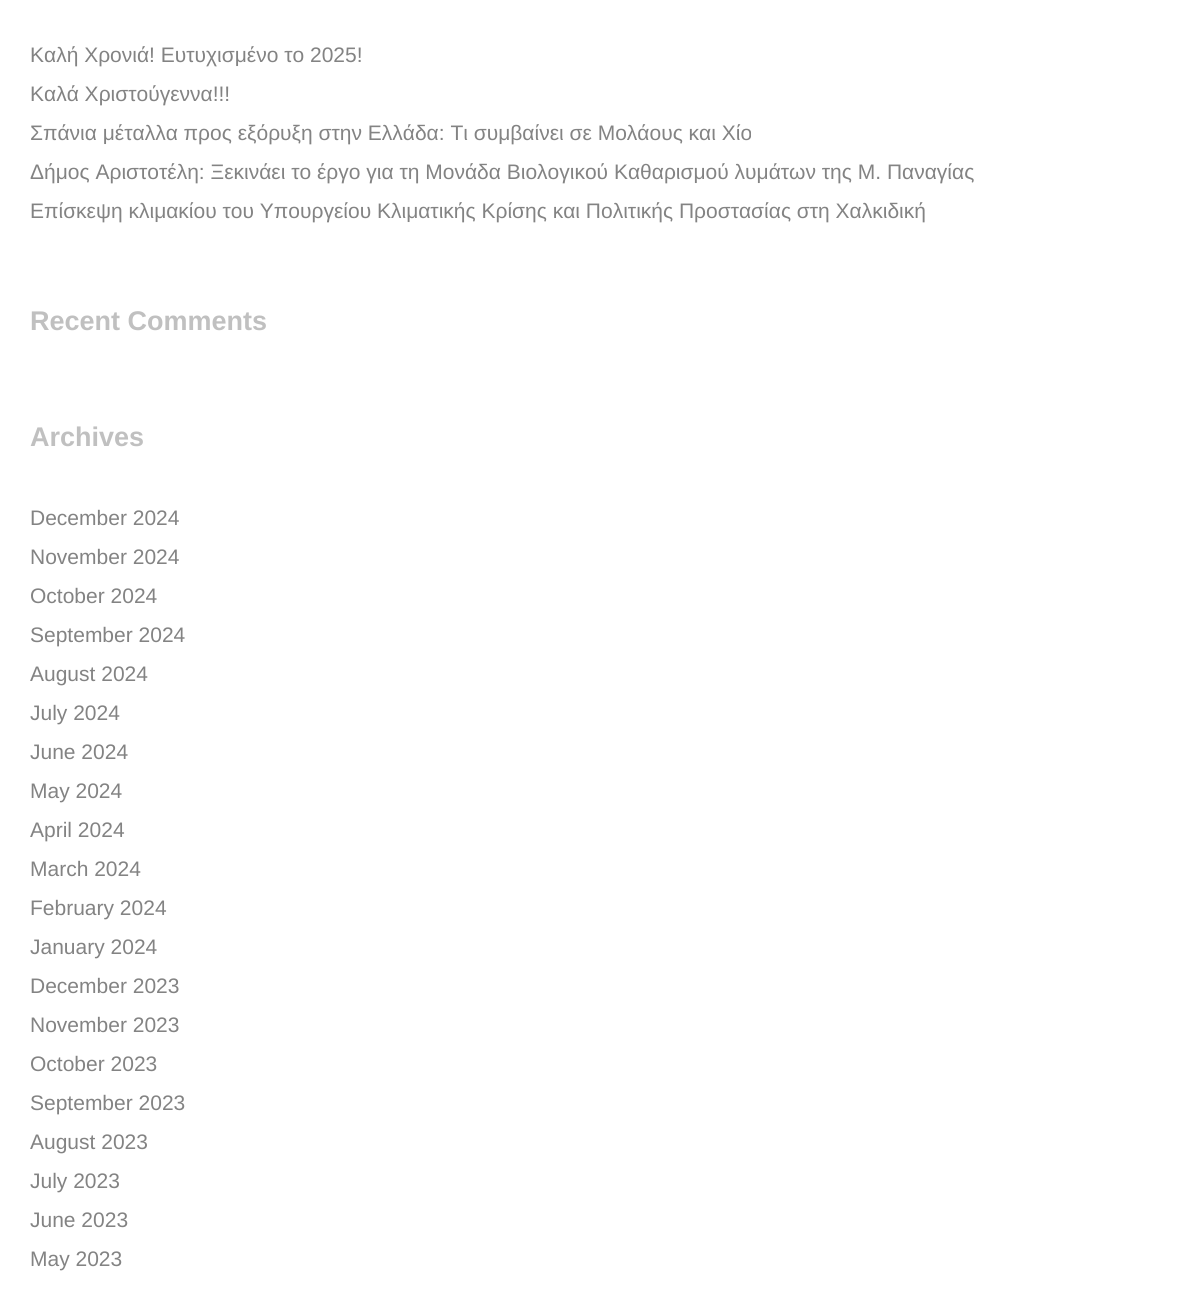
#include <cairo.h>
#include <math.h>
#include <stddef.h>


int main(void) {
    cairo_surface_t *surface = cairo_image_surface_create(CAIRO_FORMAT_RGB24, 1198, 1299);
    cairo_t *cr = cairo_create(surface);
    cairo_font_options_t *options = cairo_font_options_create();
    cairo_font_options_set_hint_metrics(options, CAIRO_HINT_METRICS_OFF);
    cairo_font_options_set_hint_style(options, CAIRO_HINT_STYLE_NONE);
    cairo_set_font_options(cr, options);
    cairo_set_miter_limit(cr, 4);
    cairo_set_source_rgb(cr, 1, 1, 1);
    cairo_paint(cr);
    cairo_select_font_face(cr, "Liberation Sans", CAIRO_FONT_SLANT_NORMAL, CAIRO_FONT_WEIGHT_NORMAL);
    cairo_set_font_size(cr, 21);
    cairo_set_source_rgb(cr, 0.514, 0.514, 0.514);
    cairo_move_to(cr, 30, 62);
    cairo_show_text(cr, "Καλή Χρονιά! Ευτυχισμένο το 2025!");
    cairo_move_to(cr, 30, 101);
    cairo_show_text(cr, "Καλά Χριστούγεννα!!!");
    cairo_move_to(cr, 30, 140);
    cairo_show_text(cr, "Σπάνια μέταλλα προς εξόρυξη στην Ελλάδα: Τι συμβαίνει σε Μολάους και Χίο");
    cairo_move_to(cr, 30, 179);
    cairo_show_text(cr, "Δήμος Αριστοτέλη: Ξεκινάει το έργο για τη Μονάδα Βιολογικού Καθαρισμού λυμάτων της Μ. Παναγίας");
    cairo_move_to(cr, 30, 218);
    cairo_show_text(cr, "Επίσκεψη κλιμακίου του Υπουργείου Κλιματικής Κρίσης και Πολιτικής Προστασίας στη Χαλκιδική");
    cairo_select_font_face(cr, "Liberation Sans", CAIRO_FONT_SLANT_NORMAL, CAIRO_FONT_WEIGHT_BOLD);
    cairo_set_font_size(cr, 27);
    cairo_set_source_rgb(cr, 0.753, 0.753, 0.753);
    cairo_move_to(cr, 30, 330);
    cairo_show_text(cr, "Recent Comments");
    cairo_move_to(cr, 30, 446);
    cairo_show_text(cr, "Archives");
    cairo_select_font_face(cr, "Liberation Sans", CAIRO_FONT_SLANT_NORMAL, CAIRO_FONT_WEIGHT_NORMAL);
    cairo_set_font_size(cr, 21);
    cairo_set_source_rgb(cr, 0.514, 0.514, 0.514);
    cairo_move_to(cr, 30, 525);
    cairo_show_text(cr, "December 2024");
    cairo_move_to(cr, 30, 564);
    cairo_show_text(cr, "November 2024");
    cairo_move_to(cr, 30, 603);
    cairo_show_text(cr, "October 2024");
    cairo_move_to(cr, 30, 642);
    cairo_show_text(cr, "September 2024");
    cairo_move_to(cr, 30, 681);
    cairo_show_text(cr, "August 2024");
    cairo_move_to(cr, 30, 720);
    cairo_show_text(cr, "July 2024");
    cairo_move_to(cr, 30, 759);
    cairo_show_text(cr, "June 2024");
    cairo_move_to(cr, 30, 798);
    cairo_show_text(cr, "May 2024");
    cairo_move_to(cr, 30, 837);
    cairo_show_text(cr, "April 2024");
    cairo_move_to(cr, 30, 876);
    cairo_show_text(cr, "March 2024");
    cairo_move_to(cr, 30, 915);
    cairo_show_text(cr, "February 2024");
    cairo_move_to(cr, 30, 954);
    cairo_show_text(cr, "January 2024");
    cairo_move_to(cr, 30, 993);
    cairo_show_text(cr, "December 2023");
    cairo_move_to(cr, 30, 1032);
    cairo_show_text(cr, "November 2023");
    cairo_move_to(cr, 30, 1071);
    cairo_show_text(cr, "October 2023");
    cairo_move_to(cr, 30, 1110);
    cairo_show_text(cr, "September 2023");
    cairo_move_to(cr, 30, 1149);
    cairo_show_text(cr, "August 2023");
    cairo_move_to(cr, 30, 1188);
    cairo_show_text(cr, "July 2023");
    cairo_move_to(cr, 30, 1227);
    cairo_show_text(cr, "June 2023");
    cairo_move_to(cr, 30, 1266);
    cairo_show_text(cr, "May 2023");
    cairo_surface_write_to_png(surface, "page.png");
    cairo_font_options_destroy(options);
    cairo_destroy(cr);
    cairo_surface_destroy(surface);
    return 0;
}
